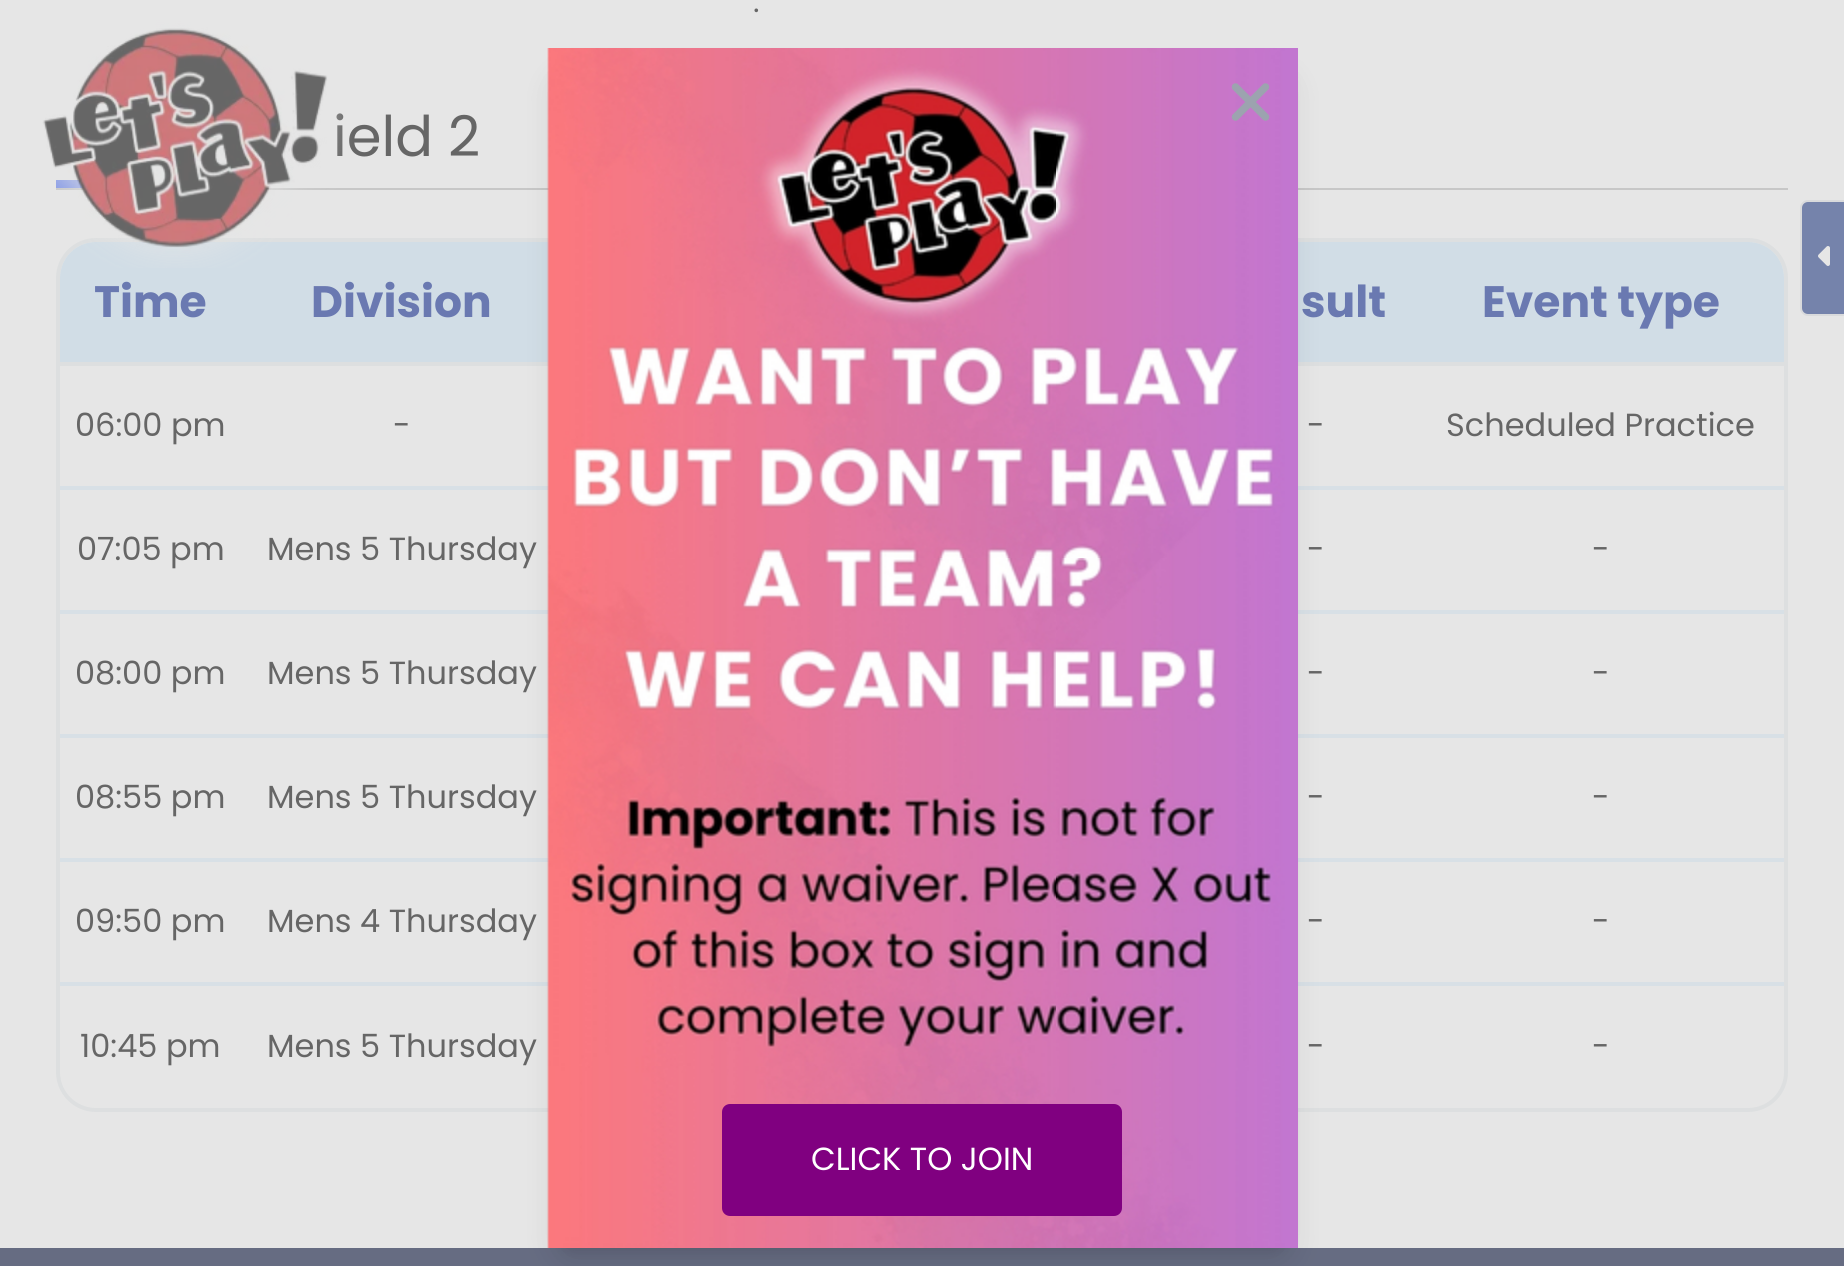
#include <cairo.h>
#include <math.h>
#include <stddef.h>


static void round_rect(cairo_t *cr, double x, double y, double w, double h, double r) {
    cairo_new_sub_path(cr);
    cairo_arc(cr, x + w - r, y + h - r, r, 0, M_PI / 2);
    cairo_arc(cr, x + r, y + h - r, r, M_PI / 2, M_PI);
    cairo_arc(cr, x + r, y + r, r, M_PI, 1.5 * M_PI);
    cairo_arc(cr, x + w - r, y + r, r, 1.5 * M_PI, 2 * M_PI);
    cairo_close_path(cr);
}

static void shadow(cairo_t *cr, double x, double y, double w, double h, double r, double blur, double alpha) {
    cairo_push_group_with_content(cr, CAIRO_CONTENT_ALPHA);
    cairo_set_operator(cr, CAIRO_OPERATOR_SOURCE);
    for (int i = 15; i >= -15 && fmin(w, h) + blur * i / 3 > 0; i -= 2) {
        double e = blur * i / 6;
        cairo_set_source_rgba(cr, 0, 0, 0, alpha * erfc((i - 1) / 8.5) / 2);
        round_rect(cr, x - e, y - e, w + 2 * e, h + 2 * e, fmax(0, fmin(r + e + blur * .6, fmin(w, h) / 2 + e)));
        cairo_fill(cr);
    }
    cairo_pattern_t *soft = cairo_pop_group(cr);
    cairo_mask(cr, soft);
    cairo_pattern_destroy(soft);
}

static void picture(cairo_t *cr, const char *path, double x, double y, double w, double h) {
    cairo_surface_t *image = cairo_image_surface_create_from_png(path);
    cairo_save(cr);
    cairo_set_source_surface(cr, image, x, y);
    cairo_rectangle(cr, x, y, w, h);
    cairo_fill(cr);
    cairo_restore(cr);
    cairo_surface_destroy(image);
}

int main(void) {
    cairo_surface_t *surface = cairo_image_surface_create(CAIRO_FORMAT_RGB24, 1844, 1266);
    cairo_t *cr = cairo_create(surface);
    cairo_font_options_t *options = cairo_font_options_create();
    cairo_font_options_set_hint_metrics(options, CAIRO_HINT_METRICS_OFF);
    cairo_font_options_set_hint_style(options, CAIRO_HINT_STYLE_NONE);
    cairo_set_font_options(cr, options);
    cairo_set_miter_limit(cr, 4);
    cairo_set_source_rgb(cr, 0.902, 0.902, 0.902);
    cairo_paint(cr);
    cairo_set_source_rgb(cr, 0.78, 0.78, 0.78);
    cairo_rectangle(cr, 56, 188, 1732, 2);
    cairo_fill(cr);
    cairo_select_font_face(cr, "Poppins", CAIRO_FONT_SLANT_NORMAL, CAIRO_FONT_WEIGHT_NORMAL);
    cairo_set_font_size(cr, 56);
    cairo_set_source_rgb(cr, 0.4, 0.4, 0.4);
    cairo_move_to(cr, 333, 156);
    cairo_show_text(cr, "ield 2");
    cairo_set_source_rgb(cr, 0.518, 0.596, 0.902);
    cairo_rectangle(cr, 56, 180, 29, 8);
    cairo_fill(cr);
    round_rect(cr, 58, 240, 1728, 870, 38);
    cairo_set_source_rgb(cr, 0.867, 0.875, 0.878);
    cairo_set_line_width(cr, 4);
    cairo_stroke(cr);
    cairo_set_source_rgb(cr, 0.82, 0.867, 0.902);
    cairo_new_path(cr);
    cairo_move_to(cr, 96, 242);
    cairo_line_to(cr, 1748, 242);
    cairo_curve_to(cr, 1768, 242, 1784, 258, 1784, 278);
    cairo_line_to(cr, 1784, 364);
    cairo_line_to(cr, 60, 364);
    cairo_line_to(cr, 60, 278);
    cairo_curve_to(cr, 60, 258, 76, 242, 96, 242);
    cairo_close_path(cr);
    cairo_fill(cr);
    picture(cr, "img1.png", 42, 0, 310, 268);
    cairo_select_font_face(cr, "Poppins Light", CAIRO_FONT_SLANT_NORMAL, CAIRO_FONT_WEIGHT_NORMAL);
    cairo_set_font_size(cr, 36);
    cairo_set_source_rgb(cr, 0.4, 0.4, 0.4);
    cairo_move_to(cr, 753, 12);
    cairo_show_text(cr, ".");
    cairo_select_font_face(cr, "Poppins", CAIRO_FONT_SLANT_NORMAL, CAIRO_FONT_WEIGHT_BOLD);
    cairo_set_font_size(cr, 44);
    cairo_set_source_rgb(cr, 0.416, 0.475, 0.694);
    cairo_move_to(cr, 94, 317);
    cairo_show_text(cr, "Time");
    cairo_set_source_rgb(cr, 0.867, 0.875, 0.878);
    cairo_rectangle(cr, 60, 362, 489, 4);
    cairo_fill(cr);
    cairo_set_source_rgb(cr, 0.416, 0.475, 0.694);
    cairo_move_to(cr, 311, 317);
    cairo_show_text(cr, "Division");
    cairo_move_to(cr, 1301, 317);
    cairo_show_text(cr, "sult");
    cairo_set_source_rgb(cr, 0.867, 0.875, 0.878);
    cairo_rectangle(cr, 1298, 362, 486, 4);
    cairo_fill(cr);
    cairo_set_source_rgb(cr, 0.416, 0.475, 0.694);
    cairo_move_to(cr, 1482, 317);
    cairo_show_text(cr, "Event type");
    cairo_select_font_face(cr, "Poppins", CAIRO_FONT_SLANT_NORMAL, CAIRO_FONT_WEIGHT_NORMAL);
    cairo_set_font_size(cr, 32);
    cairo_set_source_rgb(cr, 0.4, 0.4, 0.4);
    cairo_move_to(cr, 75, 436);
    cairo_show_text(cr, "06:00 pm");
    cairo_set_source_rgb(cr, 0.847, 0.878, 0.902);
    cairo_rectangle(cr, 60, 486, 489, 4);
    cairo_fill(cr);
    cairo_set_source_rgb(cr, 0.4, 0.4, 0.4);
    cairo_move_to(cr, 393, 436);
    cairo_show_text(cr, "-");
    cairo_move_to(cr, 1307, 436);
    cairo_show_text(cr, "-");
    cairo_set_source_rgb(cr, 0.847, 0.878, 0.902);
    cairo_rectangle(cr, 1298, 486, 486, 4);
    cairo_fill(cr);
    cairo_set_source_rgb(cr, 0.4, 0.4, 0.4);
    cairo_move_to(cr, 1446, 436);
    cairo_show_text(cr, "Scheduled Practice");
    cairo_move_to(cr, 77, 560);
    cairo_show_text(cr, "07:05 pm");
    cairo_set_source_rgb(cr, 0.847, 0.878, 0.902);
    cairo_rectangle(cr, 60, 610, 489, 4);
    cairo_fill(cr);
    cairo_set_source_rgb(cr, 0.4, 0.4, 0.4);
    cairo_move_to(cr, 267, 560);
    cairo_show_text(cr, "Mens 5 Thursday");
    cairo_move_to(cr, 1307, 560);
    cairo_show_text(cr, "-");
    cairo_set_source_rgb(cr, 0.847, 0.878, 0.902);
    cairo_rectangle(cr, 1298, 610, 486, 4);
    cairo_fill(cr);
    cairo_set_source_rgb(cr, 0.4, 0.4, 0.4);
    cairo_move_to(cr, 1592, 560);
    cairo_show_text(cr, "-");
    cairo_move_to(cr, 75, 684);
    cairo_show_text(cr, "08:00 pm");
    cairo_set_source_rgb(cr, 0.847, 0.878, 0.902);
    cairo_rectangle(cr, 60, 734, 489, 4);
    cairo_fill(cr);
    cairo_set_source_rgb(cr, 0.4, 0.4, 0.4);
    cairo_move_to(cr, 267, 684);
    cairo_show_text(cr, "Mens 5 Thursday");
    cairo_move_to(cr, 1307, 684);
    cairo_show_text(cr, "-");
    cairo_set_source_rgb(cr, 0.847, 0.878, 0.902);
    cairo_rectangle(cr, 1298, 734, 486, 4);
    cairo_fill(cr);
    cairo_set_source_rgb(cr, 0.4, 0.4, 0.4);
    cairo_move_to(cr, 1592, 684);
    cairo_show_text(cr, "-");
    cairo_move_to(cr, 75, 808);
    cairo_show_text(cr, "08:55 pm");
    cairo_set_source_rgb(cr, 0.847, 0.878, 0.902);
    cairo_rectangle(cr, 60, 858, 489, 4);
    cairo_fill(cr);
    cairo_set_source_rgb(cr, 0.4, 0.4, 0.4);
    cairo_move_to(cr, 267, 808);
    cairo_show_text(cr, "Mens 5 Thursday");
    cairo_move_to(cr, 1307, 808);
    cairo_show_text(cr, "-");
    cairo_set_source_rgb(cr, 0.847, 0.878, 0.902);
    cairo_rectangle(cr, 1298, 858, 486, 4);
    cairo_fill(cr);
    cairo_set_source_rgb(cr, 0.4, 0.4, 0.4);
    cairo_move_to(cr, 1592, 808);
    cairo_show_text(cr, "-");
    cairo_move_to(cr, 75, 932);
    cairo_show_text(cr, "09:50 pm");
    cairo_set_source_rgb(cr, 0.847, 0.878, 0.902);
    cairo_rectangle(cr, 60, 982, 489, 4);
    cairo_fill(cr);
    cairo_set_source_rgb(cr, 0.4, 0.4, 0.4);
    cairo_move_to(cr, 267, 932);
    cairo_show_text(cr, "Mens 4 Thursday");
    cairo_move_to(cr, 1307, 932);
    cairo_show_text(cr, "-");
    cairo_set_source_rgb(cr, 0.847, 0.878, 0.902);
    cairo_rectangle(cr, 1298, 982, 486, 4);
    cairo_fill(cr);
    cairo_set_source_rgb(cr, 0.4, 0.4, 0.4);
    cairo_move_to(cr, 1592, 932);
    cairo_show_text(cr, "-");
    cairo_move_to(cr, 80, 1057);
    cairo_show_text(cr, "10:45 pm");
    cairo_move_to(cr, 267, 1057);
    cairo_show_text(cr, "Mens 5 Thursday");
    cairo_move_to(cr, 1307, 1057);
    cairo_show_text(cr, "-");
    cairo_move_to(cr, 1592, 1057);
    cairo_show_text(cr, "-");
    cairo_set_source_rgb(cr, 0.459, 0.514, 0.671);
    round_rect(cr, 1801, 201, 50, 114, 7);
    cairo_fill_preserve(cr);
    cairo_set_source_rgb(cr, 0.851, 0.855, 0.863);
    cairo_set_line_width(cr, 2);
    cairo_stroke(cr);
    picture(cr, "img2.png", 1818, 246, 12, 20);
    cairo_set_source_rgb(cr, 0.4, 0.424, 0.51);
    cairo_rectangle(cr, 0, 1248, 1844, 18);
    cairo_fill(cr);
    cairo_set_source_rgb(cr, 0, 0, 0);
    shadow(cr, 556, 64, 734, 1184, 16, 6, 0.1);
    shadow(cr, 554, 74, 738, 1188, 18, 15, 0.1);
    picture(cr, "img4.png", 547, 48, 751, 1200);
    picture(cr, "img3.png", 1231, 83, 39, 38);
    cairo_set_source_rgb(cr, 0.502, 0, 0.502);
    round_rect(cr, 722, 1104, 400, 112, 8);
    cairo_fill(cr);
    cairo_set_source_rgb(cr, 1, 1, 1);
    cairo_move_to(cr, 811, 1170);
    cairo_show_text(cr, "CLICK TO JOIN");
    cairo_surface_write_to_png(surface, "page.png");
    cairo_font_options_destroy(options);
    cairo_destroy(cr);
    cairo_surface_destroy(surface);
    return 0;
}
